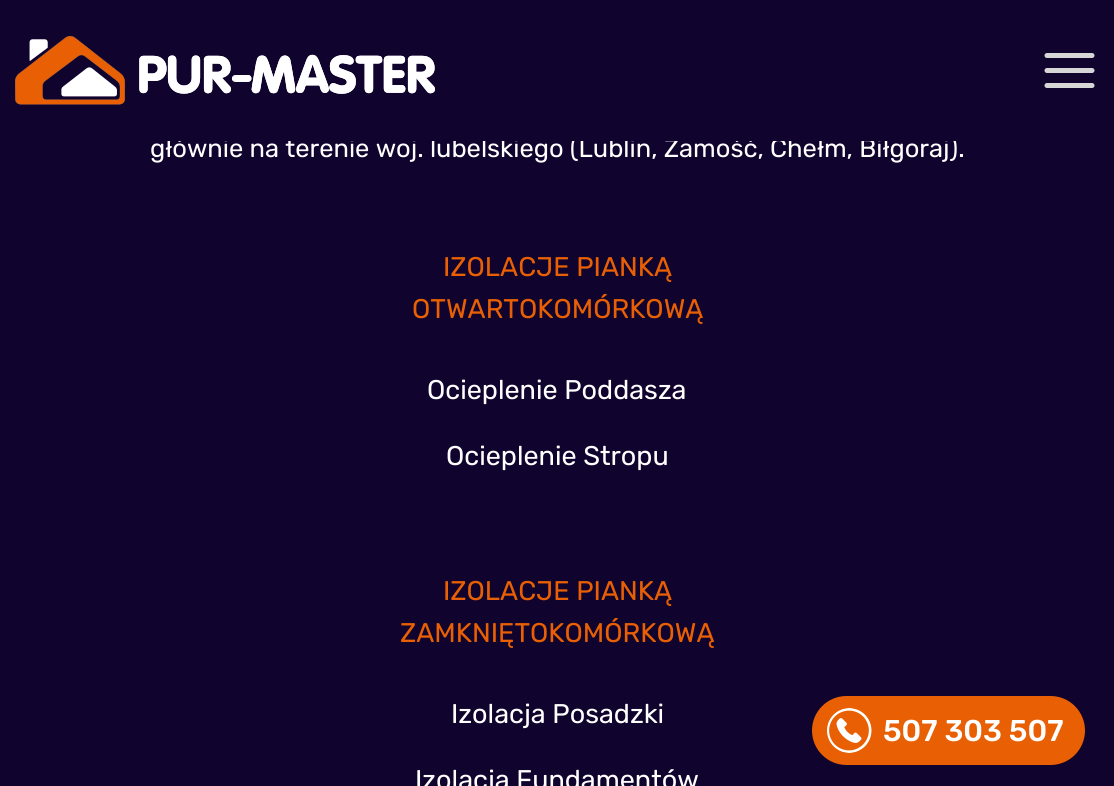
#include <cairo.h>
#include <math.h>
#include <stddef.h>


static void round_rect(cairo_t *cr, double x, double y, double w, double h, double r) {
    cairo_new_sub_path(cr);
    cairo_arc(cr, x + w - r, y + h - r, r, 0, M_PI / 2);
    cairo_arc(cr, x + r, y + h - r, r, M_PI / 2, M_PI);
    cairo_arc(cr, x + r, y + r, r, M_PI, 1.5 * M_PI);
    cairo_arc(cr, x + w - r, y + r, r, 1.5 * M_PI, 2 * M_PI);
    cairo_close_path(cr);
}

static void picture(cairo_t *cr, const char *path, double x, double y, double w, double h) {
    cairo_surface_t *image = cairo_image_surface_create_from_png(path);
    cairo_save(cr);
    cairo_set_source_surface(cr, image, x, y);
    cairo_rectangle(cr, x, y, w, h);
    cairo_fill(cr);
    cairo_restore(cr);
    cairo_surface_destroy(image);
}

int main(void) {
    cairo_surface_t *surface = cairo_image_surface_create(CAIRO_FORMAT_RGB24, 1114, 786);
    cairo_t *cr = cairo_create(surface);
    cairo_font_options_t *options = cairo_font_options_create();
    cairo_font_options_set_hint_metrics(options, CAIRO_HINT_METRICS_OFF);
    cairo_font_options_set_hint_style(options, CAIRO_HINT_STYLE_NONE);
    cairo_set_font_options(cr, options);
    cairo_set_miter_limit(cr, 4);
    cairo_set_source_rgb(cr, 0.063, 0.012, 0.176);
    cairo_paint(cr);
    cairo_select_font_face(cr, "Rubik", CAIRO_FONT_SLANT_NORMAL, CAIRO_FONT_WEIGHT_NORMAL);
    cairo_set_font_size(cr, 25.5);
    cairo_set_source_rgb(cr, 1, 1, 1);
    cairo_move_to(cr, 150, 157);
    cairo_show_text(cr, "głównie na terenie woj. lubelskiego (Lublin, Zamość, Chełm, Biłgoraj).");
    cairo_set_source_rgb(cr, 0.063, 0.012, 0.176);
    cairo_rectangle(cr, 167, 137, 789, 4);
    cairo_fill(cr);
    picture(cr, "img1.png", 15, 36, 420, 69);
    cairo_new_path(cr);
    cairo_move_to(cr, 1047, 55.5);
    cairo_line_to(cr, 1092, 55.5);
    cairo_move_to(cr, 1047, 70.5);
    cairo_line_to(cr, 1092, 70.5);
    cairo_move_to(cr, 1047, 85.5);
    cairo_line_to(cr, 1092, 85.5);
    cairo_set_source_rgb(cr, 0.839, 0.839, 0.839);
    cairo_set_line_width(cr, 5);
    cairo_set_line_cap(cr, CAIRO_LINE_CAP_ROUND);
    cairo_set_line_join(cr, CAIRO_LINE_JOIN_ROUND);
    cairo_stroke(cr);
    cairo_set_font_size(cr, 27);
    cairo_set_source_rgb(cr, 0.91, 0.376, 0.012);
    cairo_move_to(cr, 443, 276);
    cairo_show_text(cr, "IZOLACJE PIANKĄ");
    cairo_move_to(cr, 412, 318);
    cairo_show_text(cr, "OTWARTOKOMÓRKOWĄ");
    cairo_set_source_rgb(cr, 1, 1, 1);
    cairo_move_to(cr, 427, 399);
    cairo_show_text(cr, "Ocieplenie Poddasza");
    cairo_move_to(cr, 446, 465);
    cairo_show_text(cr, "Ocieplenie Stropu");
    cairo_set_source_rgb(cr, 0.91, 0.376, 0.012);
    cairo_move_to(cr, 443, 600);
    cairo_show_text(cr, "IZOLACJE PIANKĄ");
    cairo_move_to(cr, 400, 642);
    cairo_show_text(cr, "ZAMKNIĘTOKOMÓRKOWĄ");
    cairo_set_source_rgb(cr, 1, 1, 1);
    cairo_move_to(cr, 451, 723);
    cairo_show_text(cr, "Izolacja Posadzki");
    cairo_move_to(cr, 415, 789);
    cairo_show_text(cr, "Izolacja Fundamentów");
    cairo_set_source_rgb(cr, 0.91, 0.376, 0.012);
    round_rect(cr, 812, 696, 273, 69, 34.5);
    cairo_fill(cr);
    picture(cr, "img2.png", 827, 708, 45, 45);
    cairo_select_font_face(cr, "Rubik Medium", CAIRO_FONT_SLANT_NORMAL, CAIRO_FONT_WEIGHT_NORMAL);
    cairo_set_font_size(cr, 30);
    cairo_set_source_rgb(cr, 1, 1, 1);
    cairo_move_to(cr, 883, 741);
    cairo_show_text(cr, "507 303 507");
    cairo_surface_write_to_png(surface, "page.png");
    cairo_font_options_destroy(options);
    cairo_destroy(cr);
    cairo_surface_destroy(surface);
    return 0;
}
